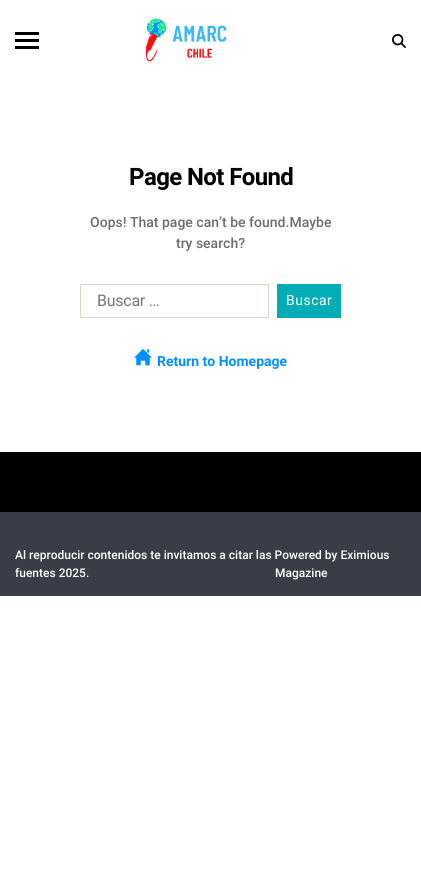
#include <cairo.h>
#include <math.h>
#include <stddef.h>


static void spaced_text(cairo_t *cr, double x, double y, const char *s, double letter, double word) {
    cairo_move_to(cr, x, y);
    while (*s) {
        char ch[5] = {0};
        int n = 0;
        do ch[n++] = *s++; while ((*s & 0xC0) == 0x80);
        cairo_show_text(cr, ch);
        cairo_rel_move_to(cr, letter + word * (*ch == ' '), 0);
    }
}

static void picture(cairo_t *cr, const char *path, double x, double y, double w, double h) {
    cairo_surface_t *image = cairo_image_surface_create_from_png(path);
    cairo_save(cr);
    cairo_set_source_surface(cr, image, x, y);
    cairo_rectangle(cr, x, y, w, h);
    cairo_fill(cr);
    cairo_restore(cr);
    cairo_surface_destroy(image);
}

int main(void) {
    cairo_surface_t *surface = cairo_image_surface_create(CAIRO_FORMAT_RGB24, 421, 873);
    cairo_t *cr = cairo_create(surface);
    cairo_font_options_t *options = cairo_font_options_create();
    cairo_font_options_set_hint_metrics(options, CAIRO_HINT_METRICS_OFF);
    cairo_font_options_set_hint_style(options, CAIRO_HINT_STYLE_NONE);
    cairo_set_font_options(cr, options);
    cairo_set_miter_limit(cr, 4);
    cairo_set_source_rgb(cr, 1, 1, 1);
    cairo_paint(cr);
    cairo_set_source_rgb(cr, 0, 0, 0);
    cairo_rectangle(cr, 15, 32, 24, 3);
    cairo_fill(cr);
    cairo_rectangle(cr, 15, 39, 24, 3);
    cairo_fill(cr);
    cairo_rectangle(cr, 15, 46, 24, 3);
    cairo_fill(cr);
    picture(cr, "img1.png", 145, 18, 82, 44);
    picture(cr, "img2.png", 392, 34, 14, 14);
    cairo_select_font_face(cr, "Roboto", CAIRO_FONT_SLANT_NORMAL, CAIRO_FONT_WEIGHT_BOLD);
    cairo_set_font_size(cr, 24);
    spaced_text(cr, 129, 185, "Page Not Found", -0.6, 0);
    cairo_select_font_face(cr, "Roboto Medium", CAIRO_FONT_SLANT_NORMAL, CAIRO_FONT_WEIGHT_NORMAL);
    cairo_set_font_size(cr, 14);
    cairo_set_source_rgb(cr, 0.427, 0.427, 0.427);
    cairo_move_to(cr, 90, 227);
    cairo_show_text(cr, "Oops! That page can’t be found.Maybe");
    cairo_move_to(cr, 176, 248);
    cairo_show_text(cr, "try search?");
    cairo_rectangle(cr, 80.5, 284.5, 188, 33);
    cairo_set_source_rgb(cr, 0.863, 0.843, 0.792);
    cairo_set_line_width(cr, 1);
    cairo_stroke(cr);
    cairo_select_font_face(cr, "Roboto", CAIRO_FONT_SLANT_NORMAL, CAIRO_FONT_WEIGHT_NORMAL);
    cairo_set_font_size(cr, 16);
    cairo_set_source_rgb(cr, 0.459, 0.459, 0.459);
    spaced_text(cr, 97, 306, "Buscar …", -0.25, 0);
    cairo_set_source_rgb(cr, 0, 0.678, 0.71);
    cairo_rectangle(cr, 277, 284, 64, 34);
    cairo_fill(cr);
    cairo_set_font_size(cr, 14);
    cairo_set_source_rgb(cr, 1, 1, 1);
    spaced_text(cr, 286, 305, "Buscar", 0.5, 0);
    picture(cr, "img3.png", 134, 348, 18, 18);
    cairo_select_font_face(cr, "Roboto", CAIRO_FONT_SLANT_NORMAL, CAIRO_FONT_WEIGHT_BOLD);
    cairo_set_source_rgb(cr, 0.004, 0.569, 1);
    cairo_move_to(cr, 157, 366);
    cairo_show_text(cr, "Return to Homepage");
    cairo_set_source_rgb(cr, 0, 0, 0);
    cairo_rectangle(cr, 0, 452, 421, 60);
    cairo_fill(cr);
    cairo_set_source_rgb(cr, 0.224, 0.243, 0.275);
    cairo_rectangle(cr, 0, 512, 421, 84);
    cairo_fill(cr);
    cairo_select_font_face(cr, "Roboto Medium", CAIRO_FONT_SLANT_NORMAL, CAIRO_FONT_WEIGHT_NORMAL);
    cairo_set_font_size(cr, 12);
    cairo_set_source_rgb(cr, 1, 1, 1);
    cairo_move_to(cr, 15, 559);
    cairo_show_text(cr, "Al reproducir contenidos te invitamos a citar las Powered by Eximious");
    cairo_move_to(cr, 15, 577);
    cairo_show_text(cr, "fuentes 2025.");
    cairo_move_to(cr, 275, 577);
    cairo_show_text(cr, "Magazine");
    cairo_surface_write_to_png(surface, "page.png");
    cairo_font_options_destroy(options);
    cairo_destroy(cr);
    cairo_surface_destroy(surface);
    return 0;
}
